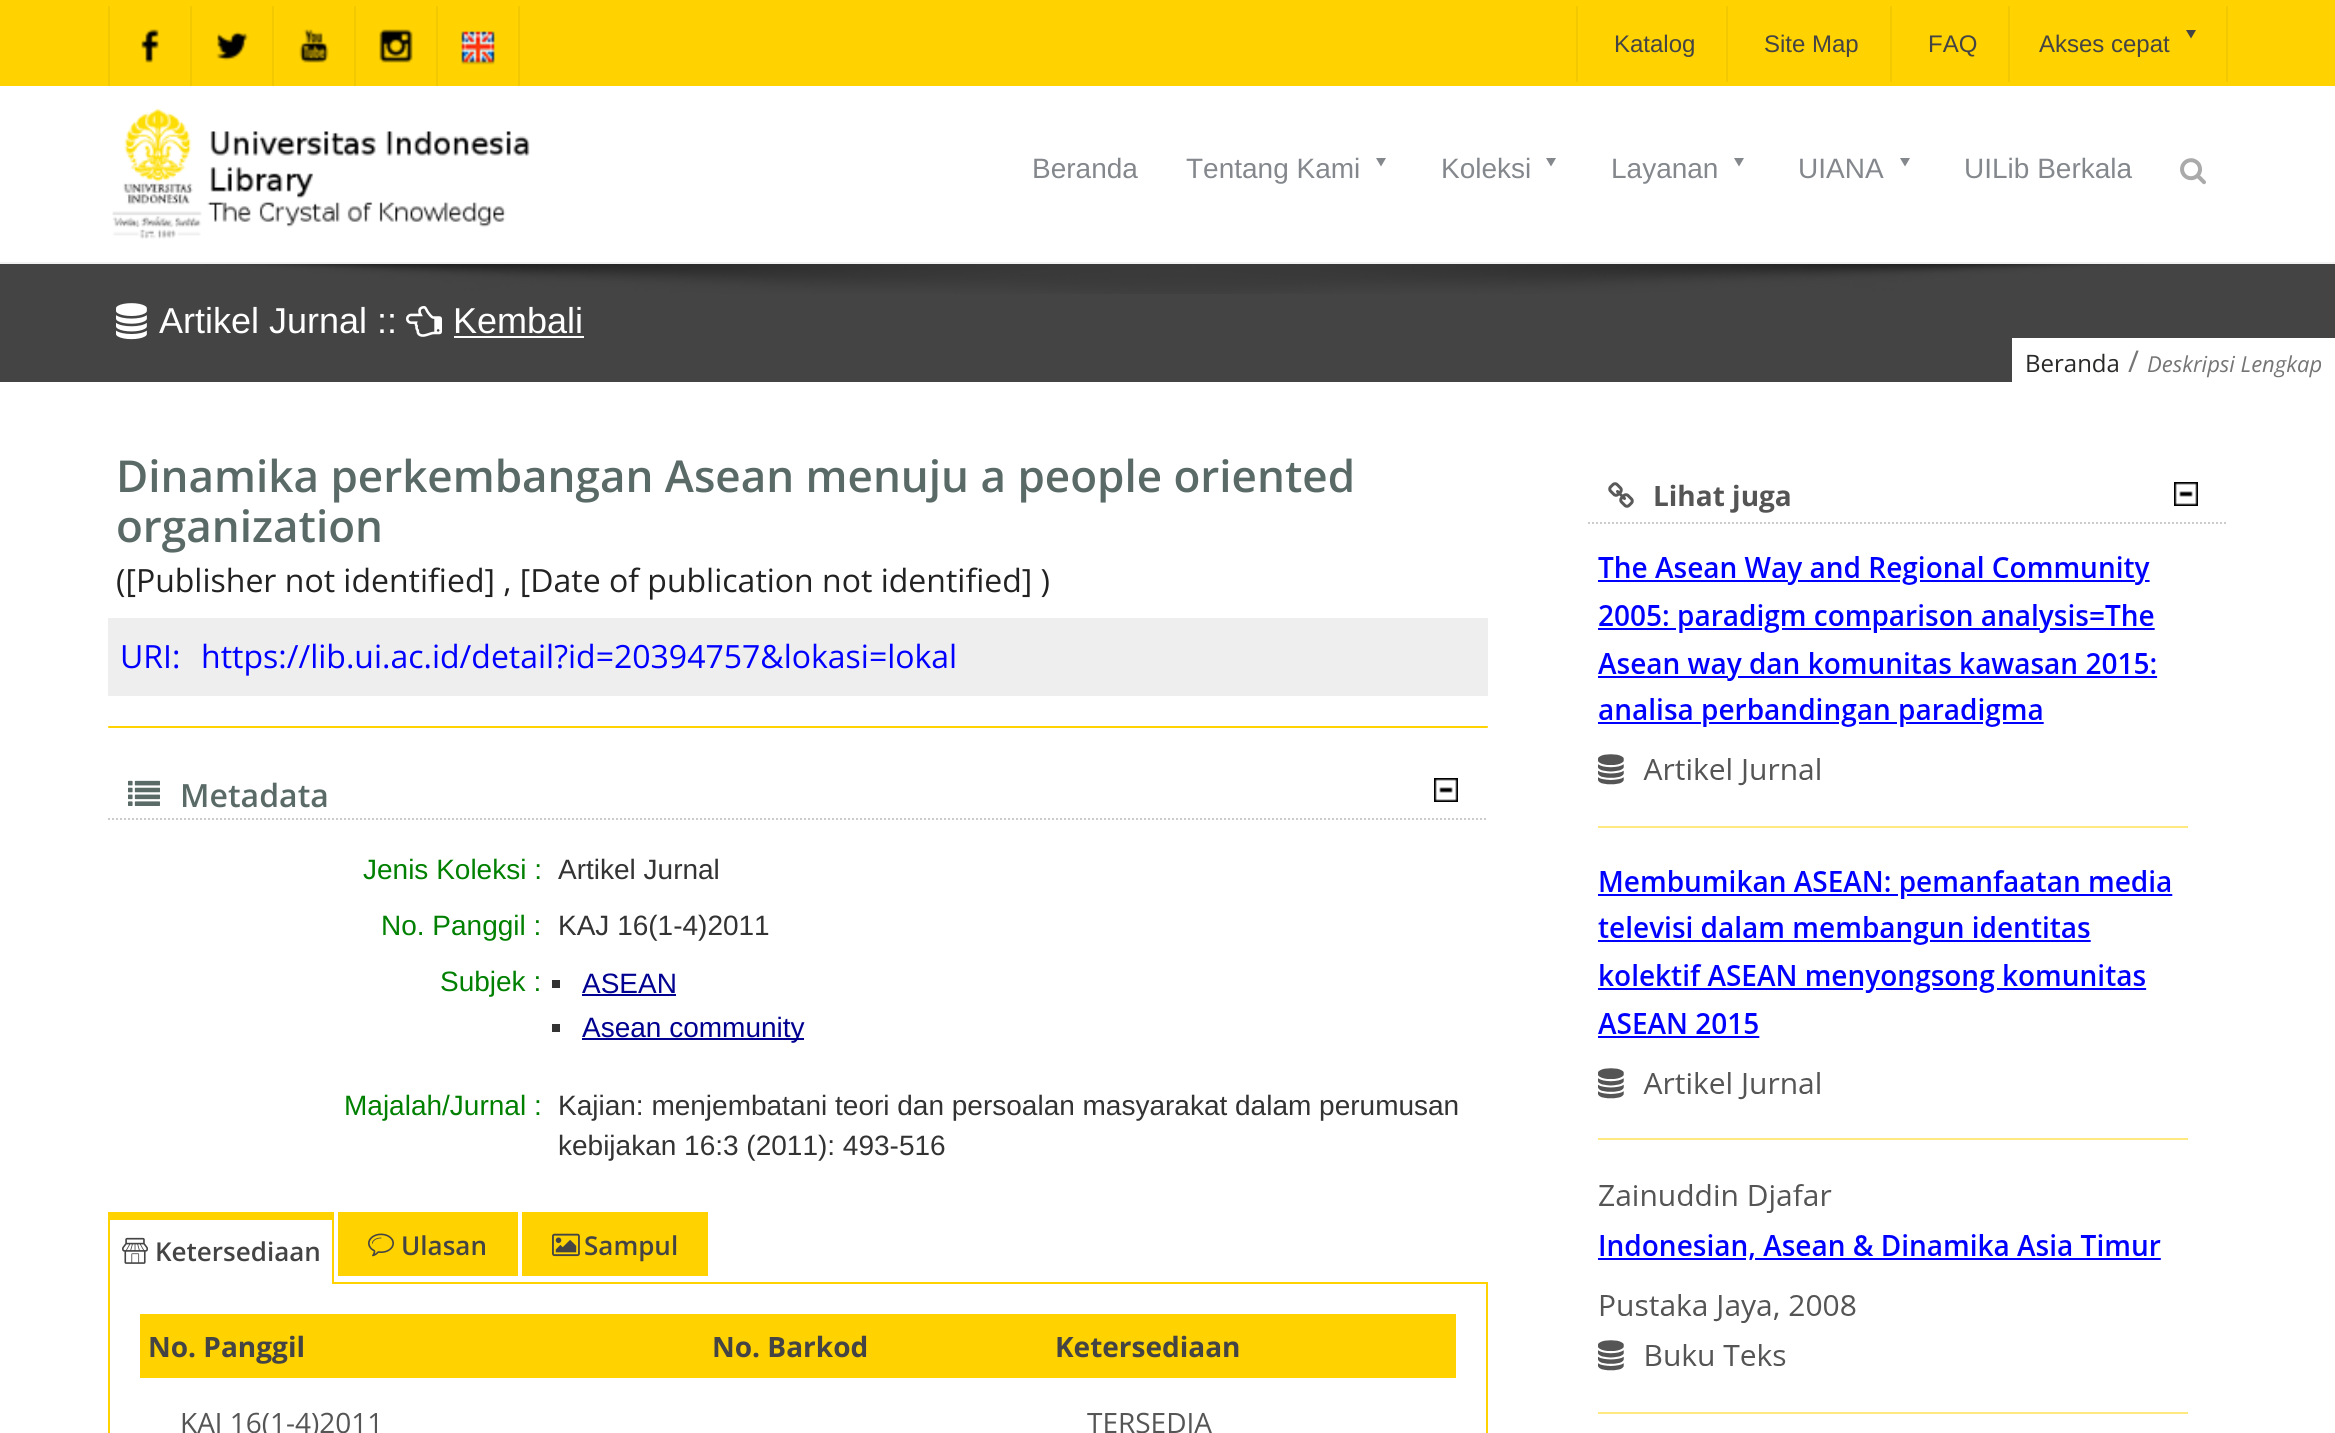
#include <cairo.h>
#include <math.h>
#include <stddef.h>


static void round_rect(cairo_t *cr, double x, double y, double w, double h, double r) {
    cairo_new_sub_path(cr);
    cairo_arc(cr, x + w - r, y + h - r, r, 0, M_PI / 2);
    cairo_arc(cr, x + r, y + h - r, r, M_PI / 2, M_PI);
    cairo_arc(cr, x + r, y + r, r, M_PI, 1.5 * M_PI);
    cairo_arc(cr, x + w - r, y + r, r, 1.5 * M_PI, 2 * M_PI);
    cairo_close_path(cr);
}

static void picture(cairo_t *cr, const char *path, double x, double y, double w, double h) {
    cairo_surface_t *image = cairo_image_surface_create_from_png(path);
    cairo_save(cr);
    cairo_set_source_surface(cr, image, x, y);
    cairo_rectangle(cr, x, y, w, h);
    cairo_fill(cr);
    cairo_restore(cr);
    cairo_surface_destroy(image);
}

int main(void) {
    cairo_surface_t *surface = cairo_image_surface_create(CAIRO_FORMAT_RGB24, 2335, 1433);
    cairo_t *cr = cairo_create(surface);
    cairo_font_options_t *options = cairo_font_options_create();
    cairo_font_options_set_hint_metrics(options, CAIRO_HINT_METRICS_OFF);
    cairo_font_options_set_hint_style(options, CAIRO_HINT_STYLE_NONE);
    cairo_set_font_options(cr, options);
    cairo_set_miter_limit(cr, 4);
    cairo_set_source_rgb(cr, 1, 1, 1);
    cairo_paint(cr);
    cairo_set_source_rgb(cr, 1, 0.824, 0);
    cairo_rectangle(cr, 0, 0, 2335, 86);
    cairo_fill(cr);
    cairo_set_source_rgb(cr, 0.949, 0.784, 0);
    cairo_rectangle(cr, 108, 6, 2, 80);
    cairo_fill(cr);
    cairo_rectangle(cr, 190, 6, 2, 80);
    cairo_fill(cr);
    picture(cr, "img1.png", 141, 29, 18, 34);
    cairo_rectangle(cr, 272, 6, 2, 80);
    cairo_fill(cr);
    picture(cr, "img2.png", 216, 31, 33, 30);
    cairo_rectangle(cr, 354, 6, 2, 80);
    cairo_fill(cr);
    picture(cr, "img3.png", 299, 29, 30, 34);
    cairo_rectangle(cr, 436, 6, 2, 80);
    cairo_fill(cr);
    picture(cr, "img4.png", 379, 29, 34, 34);
    cairo_rectangle(cr, 518, 6, 2, 80);
    cairo_fill(cr);
    picture(cr, "img5.png", 461, 31, 34, 34);
    cairo_rectangle(cr, 1576, 6, 2, 76);
    cairo_fill(cr);
    cairo_select_font_face(cr, "Liberation Sans", CAIRO_FONT_SLANT_NORMAL, CAIRO_FONT_WEIGHT_NORMAL);
    cairo_set_font_size(cr, 24);
    cairo_set_source_rgb(cr, 0.267, 0.267, 0.267);
    cairo_move_to(cr, 1614, 52);
    cairo_show_text(cr, "Katalog");
    cairo_set_source_rgb(cr, 0.949, 0.784, 0);
    cairo_rectangle(cr, 1726, 6, 2, 76);
    cairo_fill(cr);
    cairo_set_source_rgb(cr, 0.267, 0.267, 0.267);
    cairo_move_to(cr, 1764, 52);
    cairo_show_text(cr, "Site Map");
    cairo_set_source_rgb(cr, 0.949, 0.784, 0);
    cairo_rectangle(cr, 1890, 6, 2, 76);
    cairo_fill(cr);
    cairo_set_source_rgb(cr, 0.267, 0.267, 0.267);
    cairo_move_to(cr, 1928, 52);
    cairo_show_text(cr, "FAQ");
    cairo_set_source_rgb(cr, 0.949, 0.784, 0);
    cairo_rectangle(cr, 2226, 6, 2, 76);
    cairo_fill(cr);
    cairo_rectangle(cr, 2008, 6, 2, 76);
    cairo_fill(cr);
    cairo_set_source_rgb(cr, 0.267, 0.267, 0.267);
    cairo_move_to(cr, 2039, 52);
    cairo_show_text(cr, "Akses cepat");
    cairo_new_path(cr);
    cairo_move_to(cr, 2196, 30);
    cairo_line_to(cr, 2191, 38.5);
    cairo_line_to(cr, 2186, 30);
    cairo_close_path(cr);
    cairo_fill(cr);
    cairo_set_source_rgb(cr, 0.949, 0.949, 0.949);
    cairo_rectangle(cr, 0, 262, 2335, 2);
    cairo_fill(cr);
    picture(cr, "img6.png", 112, 108, 418, 131);
    cairo_set_font_size(cr, 28);
    cairo_set_source_rgb(cr, 0.518, 0.533, 0.553);
    cairo_move_to(cr, 1032, 178);
    cairo_show_text(cr, "Beranda");
    cairo_move_to(cr, 1186, 178);
    cairo_show_text(cr, "Tentang Kami");
    cairo_new_path(cr);
    cairo_move_to(cr, 1386, 158);
    cairo_line_to(cr, 1381, 166.5);
    cairo_line_to(cr, 1376, 158);
    cairo_close_path(cr);
    cairo_fill(cr);
    cairo_move_to(cr, 1441, 178);
    cairo_show_text(cr, "Koleksi");
    cairo_new_path(cr);
    cairo_move_to(cr, 1556, 158);
    cairo_line_to(cr, 1551, 166.5);
    cairo_line_to(cr, 1546, 158);
    cairo_close_path(cr);
    cairo_fill(cr);
    cairo_move_to(cr, 1611, 178);
    cairo_show_text(cr, "Layanan");
    cairo_new_path(cr);
    cairo_move_to(cr, 1744, 158);
    cairo_line_to(cr, 1739, 166.5);
    cairo_line_to(cr, 1734, 158);
    cairo_close_path(cr);
    cairo_fill(cr);
    cairo_move_to(cr, 1798, 178);
    cairo_show_text(cr, "UIANA");
    cairo_new_path(cr);
    cairo_move_to(cr, 1910, 158);
    cairo_line_to(cr, 1905, 166.5);
    cairo_line_to(cr, 1900, 158);
    cairo_close_path(cr);
    cairo_fill(cr);
    cairo_move_to(cr, 1964, 178);
    cairo_show_text(cr, "UILib Berkala");
    picture(cr, "img7.png", 2180, 158, 26, 27);
    cairo_set_source_rgb(cr, 0.267, 0.267, 0.267);
    cairo_rectangle(cr, 0, 264, 2335, 118);
    cairo_fill(cr);
    picture(cr, "img8.png", 205, 264, 1939, 30);
    picture(cr, "img9.png", 116, 303, 31, 37);
    cairo_set_font_size(cr, 36);
    cairo_set_source_rgb(cr, 1, 1, 1);
    cairo_move_to(cr, 159, 333);
    cairo_show_text(cr, "Artikel Jurnal ::");
    picture(cr, "img10.png", 406, 306, 36, 31);
    cairo_move_to(cr, 453, 333);
    cairo_show_text(cr, "Kembali");
    cairo_rectangle(cr, 454, 336, 130, 2);
    cairo_fill(cr);
    cairo_rectangle(cr, 2012, 338, 323, 44);
    cairo_fill(cr);
    cairo_select_font_face(cr, "Open Sans", CAIRO_FONT_SLANT_NORMAL, CAIRO_FONT_WEIGHT_NORMAL);
    cairo_set_font_size(cr, 24);
    cairo_set_source_rgb(cr, 0.161, 0.161, 0.157);
    cairo_move_to(cr, 2025, 372);
    cairo_show_text(cr, "Beranda");
    cairo_set_font_size(cr, 30);
    cairo_set_source_rgb(cr, 0.459, 0.459, 0.459);
    cairo_move_to(cr, 2128, 372);
    cairo_show_text(cr, "/");
    cairo_select_font_face(cr, "Open Sans", CAIRO_FONT_SLANT_ITALIC, CAIRO_FONT_WEIGHT_NORMAL);
    cairo_set_font_size(cr, 22);
    cairo_move_to(cr, 2147, 372);
    cairo_show_text(cr, "Deskripsi Lengkap");
    cairo_select_font_face(cr, "Open Sans SemiBold", CAIRO_FONT_SLANT_NORMAL, CAIRO_FONT_WEIGHT_NORMAL);
    cairo_set_font_size(cr, 44);
    cairo_set_source_rgb(cr, 0.349, 0.416, 0.404);
    cairo_move_to(cr, 116, 492);
    cairo_show_text(cr, "Dinamika perkembangan Asean menuju a people oriented");
    cairo_move_to(cr, 116, 542);
    cairo_show_text(cr, "organization");
    cairo_select_font_face(cr, "Open Sans", CAIRO_FONT_SLANT_NORMAL, CAIRO_FONT_WEIGHT_NORMAL);
    cairo_set_font_size(cr, 32);
    cairo_set_source_rgb(cr, 0.133, 0.133, 0.133);
    cairo_move_to(cr, 116, 592);
    cairo_show_text(cr, "([Publisher not identified] , [Date of publication not identified] )");
    cairo_set_source_rgb(cr, 0.933, 0.933, 0.933);
    cairo_rectangle(cr, 108, 618, 1380, 78);
    cairo_fill(cr);
    cairo_set_source_rgb(cr, 0, 0, 1);
    cairo_move_to(cr, 120, 668);
    cairo_show_text(cr, "URI:");
    cairo_move_to(cr, 201, 668);
    cairo_show_text(cr, "https://lib.ui.ac.id/detail?id=20394757&lokasi=lokal");
    cairo_set_source_rgb(cr, 1, 0.824, 0);
    round_rect(cr, 108, 726, 1380, 2, 1);
    cairo_fill(cr);
    cairo_new_path(cr);
    cairo_move_to(cr, 108, 819);
    cairo_line_to(cr, 1488, 819);
    cairo_set_source_rgb(cr, 0.8, 0.8, 0.8);
    cairo_set_dash(cr, (double[]){2, 2}, 2, 0);
    cairo_stroke(cr);
    picture(cr, "img11.png", 128, 780, 32, 26);
    cairo_select_font_face(cr, "Open Sans SemiBold", CAIRO_FONT_SLANT_NORMAL, CAIRO_FONT_WEIGHT_NORMAL);
    cairo_set_source_rgb(cr, 0.349, 0.416, 0.404);
    cairo_move_to(cr, 180, 807);
    cairo_show_text(cr, "Metadata");
    picture(cr, "img12.png", 1434, 778, 24, 24);
    cairo_select_font_face(cr, "Liberation Sans", CAIRO_FONT_SLANT_NORMAL, CAIRO_FONT_WEIGHT_NORMAL);
    cairo_set_font_size(cr, 28);
    cairo_set_source_rgb(cr, 0, 0.502, 0);
    cairo_move_to(cr, 363, 879);
    cairo_show_text(cr, "Jenis Koleksi :");
    cairo_set_source_rgb(cr, 0.2, 0.2, 0.2);
    cairo_move_to(cr, 558, 879);
    cairo_show_text(cr, "Artikel Jurnal");
    cairo_set_source_rgb(cr, 0, 0.502, 0);
    cairo_move_to(cr, 381, 935);
    cairo_show_text(cr, "No. Panggil :");
    cairo_set_source_rgb(cr, 0.2, 0.2, 0.2);
    cairo_move_to(cr, 558, 935);
    cairo_show_text(cr, "KAJ 16(1-4)2011");
    cairo_set_source_rgb(cr, 0, 0.502, 0);
    cairo_move_to(cr, 440, 991);
    cairo_show_text(cr, "Subjek :");
    cairo_set_source_rgb(cr, 0.2, 0.2, 0.2);
    cairo_rectangle(cr, 552, 980, 8, 8);
    cairo_fill(cr);
    cairo_set_source_rgb(cr, 0, 0, 0.565);
    cairo_move_to(cr, 582, 993);
    cairo_show_text(cr, "ASEAN");
    cairo_rectangle(cr, 582, 994, 94, 2);
    cairo_fill(cr);
    cairo_set_source_rgb(cr, 0.2, 0.2, 0.2);
    cairo_rectangle(cr, 552, 1024, 8, 8);
    cairo_fill(cr);
    cairo_set_source_rgb(cr, 0, 0, 0.565);
    cairo_rectangle(cr, 582, 1038, 222, 2);
    cairo_fill(cr);
    cairo_move_to(cr, 582, 1037);
    cairo_show_text(cr, "Asean community");
    cairo_set_source_rgb(cr, 0, 0.502, 0);
    cairo_move_to(cr, 344, 1115);
    cairo_show_text(cr, "Majalah/Jurnal :");
    cairo_set_source_rgb(cr, 0.2, 0.2, 0.2);
    cairo_move_to(cr, 558, 1115);
    cairo_show_text(cr, "Kajian: menjembatani teori dan persoalan masyarakat dalam perumusan");
    cairo_move_to(cr, 558, 1155);
    cairo_show_text(cr, "kebijakan 16:3 (2011): 493-516");
    cairo_rectangle(cr, 109, 1283, 1378, 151);
    cairo_set_source_rgb(cr, 1, 0.824, 0);
    cairo_set_dash(cr, NULL, 0, 0);
    cairo_stroke(cr);
    cairo_set_source_rgb(cr, 1, 1, 1);
    cairo_rectangle(cr, 110, 1282, 222, 2);
    cairo_fill(cr);
    cairo_set_source_rgb(cr, 1, 0.824, 0);
    cairo_rectangle(cr, 108, 1212, 226, 8);
    cairo_fill(cr);
    cairo_rectangle(cr, 332, 1212, 2, 72);
    cairo_fill(cr);
    cairo_rectangle(cr, 108, 1212, 2, 72);
    cairo_fill(cr);
    picture(cr, "img13.png", 122, 1237, 26, 27);
    cairo_select_font_face(cr, "Open Sans SemiBold", CAIRO_FONT_SLANT_NORMAL, CAIRO_FONT_WEIGHT_NORMAL);
    cairo_set_font_size(cr, 26);
    cairo_set_source_rgb(cr, 0.267, 0.267, 0.267);
    cairo_move_to(cr, 155, 1261);
    cairo_show_text(cr, "Ketersediaan");
    cairo_set_source_rgb(cr, 1, 0.824, 0);
    cairo_rectangle(cr, 338, 1212, 180, 64);
    cairo_fill(cr);
    picture(cr, "img14.png", 368, 1233, 26, 24);
    cairo_set_source_rgb(cr, 0.267, 0.267, 0.267);
    cairo_move_to(cr, 401, 1255);
    cairo_show_text(cr, "Ulasan");
    cairo_set_source_rgb(cr, 1, 0.824, 0);
    cairo_rectangle(cr, 522, 1212, 186, 64);
    cairo_fill(cr);
    picture(cr, "img15.png", 552, 1233, 28, 24);
    cairo_set_source_rgb(cr, 0.267, 0.267, 0.267);
    cairo_move_to(cr, 584, 1255);
    cairo_show_text(cr, "Sampul");
    cairo_set_source_rgb(cr, 1, 0.824, 0);
    cairo_rectangle(cr, 140, 1314, 1316, 64);
    cairo_fill(cr);
    cairo_select_font_face(cr, "Open Sans", CAIRO_FONT_SLANT_NORMAL, CAIRO_FONT_WEIGHT_BOLD);
    cairo_set_font_size(cr, 28);
    cairo_set_source_rgb(cr, 0.267, 0.267, 0.267);
    cairo_move_to(cr, 148, 1357);
    cairo_show_text(cr, "No. Panggil");
    cairo_move_to(cr, 712, 1357);
    cairo_show_text(cr, "No. Barkod");
    cairo_move_to(cr, 1055, 1357);
    cairo_show_text(cr, "Ketersediaan");
    cairo_select_font_face(cr, "Open Sans", CAIRO_FONT_SLANT_NORMAL, CAIRO_FONT_WEIGHT_NORMAL);
    cairo_set_source_rgb(cr, 0.333, 0.333, 0.333);
    cairo_move_to(cr, 180, 1433);
    cairo_show_text(cr, "KAJ 16(1-4)2011");
    cairo_move_to(cr, 1087, 1433);
    cairo_show_text(cr, "TERSEDIA");
    cairo_new_path(cr);
    cairo_move_to(cr, 1588, 523);
    cairo_line_to(cr, 2228, 523);
    cairo_set_source_rgb(cr, 0.8, 0.8, 0.8);
    cairo_set_dash(cr, (double[]){2, 2}, 2, 0);
    cairo_stroke(cr);
    picture(cr, "img16.png", 1608, 482, 26, 26);
    cairo_select_font_face(cr, "Open Sans", CAIRO_FONT_SLANT_NORMAL, CAIRO_FONT_WEIGHT_BOLD);
    cairo_set_source_rgb(cr, 0.333, 0.333, 0.333);
    cairo_move_to(cr, 1653, 506);
    cairo_show_text(cr, "Lihat juga");
    picture(cr, "img12.png", 2174, 482, 24, 24);
    picture(cr, "img17.png", 1598, 556, 590, 858);
    cairo_surface_write_to_png(surface, "page.png");
    cairo_font_options_destroy(options);
    cairo_destroy(cr);
    cairo_surface_destroy(surface);
    return 0;
}
